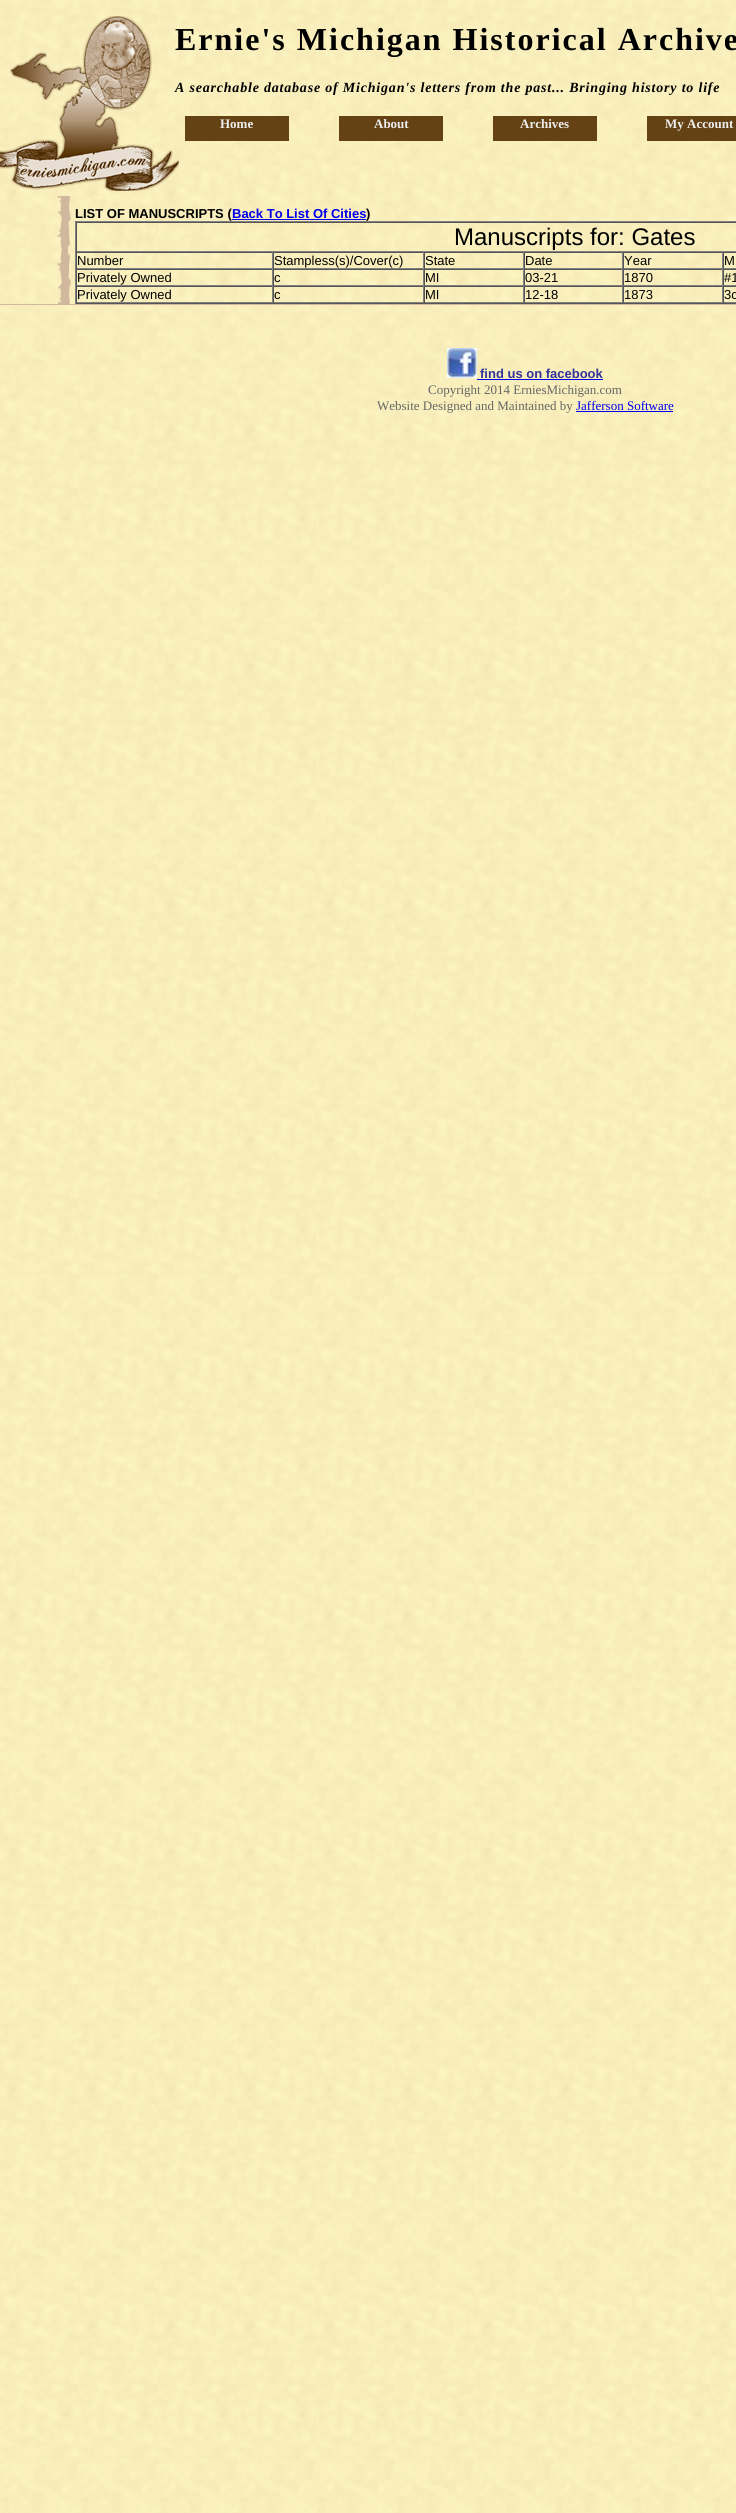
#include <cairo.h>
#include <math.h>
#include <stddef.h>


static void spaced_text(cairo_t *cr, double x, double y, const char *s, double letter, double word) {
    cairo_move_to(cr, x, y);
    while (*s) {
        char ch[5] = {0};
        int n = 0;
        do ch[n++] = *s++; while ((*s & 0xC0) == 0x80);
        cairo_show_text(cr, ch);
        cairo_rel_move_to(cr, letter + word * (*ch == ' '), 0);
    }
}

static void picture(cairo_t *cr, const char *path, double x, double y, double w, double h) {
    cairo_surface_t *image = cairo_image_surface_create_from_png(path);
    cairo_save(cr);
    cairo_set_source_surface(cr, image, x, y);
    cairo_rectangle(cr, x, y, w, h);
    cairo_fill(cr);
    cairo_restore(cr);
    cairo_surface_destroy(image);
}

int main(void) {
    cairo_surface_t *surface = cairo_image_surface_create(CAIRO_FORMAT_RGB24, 736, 2513);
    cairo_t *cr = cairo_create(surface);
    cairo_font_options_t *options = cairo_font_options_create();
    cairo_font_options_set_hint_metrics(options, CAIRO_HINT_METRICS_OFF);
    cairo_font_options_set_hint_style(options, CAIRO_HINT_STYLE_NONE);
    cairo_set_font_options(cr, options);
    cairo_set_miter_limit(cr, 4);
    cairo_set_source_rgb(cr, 1, 1, 1);
    cairo_paint(cr);
    picture(cr, "img1.png", 0, 0, 736, 2513);
    cairo_select_font_face(cr, "Liberation Serif", CAIRO_FONT_SLANT_NORMAL, CAIRO_FONT_WEIGHT_BOLD);
    cairo_set_font_size(cr, 32);
    cairo_set_source_rgb(cr, 0, 0, 0);
    spaced_text(cr, 175, 50, "Ernie's Michigan Historical Archive", 2, 0);
    cairo_select_font_face(cr, "Liberation Serif", CAIRO_FONT_SLANT_ITALIC, CAIRO_FONT_WEIGHT_BOLD);
    cairo_set_font_size(cr, 14);
    spaced_text(cr, 175, 92, "A searchable database of Michigan's letters from the past... Bringing history to life", 0.8, 0);
    picture(cr, "img2.png", 0, 16, 179, 175);
    cairo_set_source_rgb(cr, 0.392, 0.259, 0.082);
    cairo_rectangle(cr, 185, 116, 104, 25);
    cairo_fill(cr);
    cairo_select_font_face(cr, "Liberation Serif", CAIRO_FONT_SLANT_NORMAL, CAIRO_FONT_WEIGHT_BOLD);
    cairo_set_font_size(cr, 13);
    cairo_set_source_rgb(cr, 0.933, 0.933, 0.933);
    cairo_move_to(cr, 220, 128);
    cairo_show_text(cr, "Home");
    cairo_set_source_rgb(cr, 0.392, 0.259, 0.082);
    cairo_rectangle(cr, 339, 116, 104, 25);
    cairo_fill(cr);
    cairo_set_source_rgb(cr, 0.933, 0.933, 0.933);
    cairo_move_to(cr, 374, 128);
    cairo_show_text(cr, "About");
    cairo_set_source_rgb(cr, 0.392, 0.259, 0.082);
    cairo_rectangle(cr, 493, 116, 104, 25);
    cairo_fill(cr);
    cairo_set_source_rgb(cr, 0.933, 0.933, 0.933);
    cairo_move_to(cr, 520, 128);
    cairo_show_text(cr, "Archives");
    cairo_set_source_rgb(cr, 0.392, 0.259, 0.082);
    cairo_rectangle(cr, 647, 116, 89, 25);
    cairo_fill(cr);
    cairo_set_source_rgb(cr, 0.933, 0.933, 0.933);
    cairo_move_to(cr, 665, 128);
    cairo_show_text(cr, "My Account");
    picture(cr, "img3.png", 56, 196, 99, 108);
    cairo_select_font_face(cr, "Liberation Sans", CAIRO_FONT_SLANT_NORMAL, CAIRO_FONT_WEIGHT_BOLD);
    cairo_set_source_rgb(cr, 0, 0, 0);
    cairo_move_to(cr, 75, 218);
    cairo_show_text(cr, "LIST OF MANUSCRIPTS (");
    cairo_set_source_rgb(cr, 0, 0, 0.933);
    cairo_rectangle(cr, 232, 219, 134, 1);
    cairo_fill(cr);
    cairo_move_to(cr, 232, 218);
    cairo_show_text(cr, "Back To List Of Cities");
    cairo_set_source_rgb(cr, 0, 0, 0);
    cairo_move_to(cr, 366, 218);
    cairo_show_text(cr, ")");
    cairo_set_source_rgb(cr, 0.502, 0.502, 0.502);
    cairo_rectangle(cr, 75, 221, 661, 1);
    cairo_fill(cr);
    cairo_set_source_rgb(cr, 0.333, 0.333, 0.333);
    cairo_rectangle(cr, 75, 303, 661, 1);
    cairo_fill(cr);
    cairo_set_source_rgb(cr, 0.502, 0.502, 0.502);
    cairo_rectangle(cr, 75, 221, 1, 83);
    cairo_fill(cr);
    cairo_set_source_rgb(cr, 0.333, 0.333, 0.333);
    cairo_rectangle(cr, 76, 222, 660, 1);
    cairo_fill(cr);
    cairo_set_source_rgb(cr, 0.502, 0.502, 0.502);
    cairo_rectangle(cr, 76, 251, 660, 1);
    cairo_fill(cr);
    cairo_set_source_rgb(cr, 0.333, 0.333, 0.333);
    cairo_rectangle(cr, 76, 222, 1, 30);
    cairo_fill(cr);
    cairo_select_font_face(cr, "Liberation Sans", CAIRO_FONT_SLANT_NORMAL, CAIRO_FONT_WEIGHT_NORMAL);
    cairo_set_font_size(cr, 24);
    cairo_set_source_rgb(cr, 0, 0, 0);
    cairo_move_to(cr, 454, 245);
    cairo_show_text(cr, "Manuscripts for: Gates");
    cairo_set_source_rgb(cr, 0.333, 0.333, 0.333);
    cairo_rectangle(cr, 76, 252, 660, 1);
    cairo_fill(cr);
    cairo_set_source_rgb(cr, 0.502, 0.502, 0.502);
    cairo_rectangle(cr, 272, 252, 1, 17);
    cairo_fill(cr);
    cairo_rectangle(cr, 76, 268, 197, 1);
    cairo_fill(cr);
    cairo_set_source_rgb(cr, 0.333, 0.333, 0.333);
    cairo_rectangle(cr, 76, 252, 1, 17);
    cairo_fill(cr);
    cairo_set_font_size(cr, 13);
    cairo_set_source_rgb(cr, 0, 0, 0);
    cairo_move_to(cr, 77, 265);
    cairo_show_text(cr, "Number");
    cairo_set_source_rgb(cr, 0.502, 0.502, 0.502);
    cairo_rectangle(cr, 423, 252, 1, 17);
    cairo_fill(cr);
    cairo_rectangle(cr, 273, 268, 151, 1);
    cairo_fill(cr);
    cairo_set_source_rgb(cr, 0.333, 0.333, 0.333);
    cairo_rectangle(cr, 273, 252, 1, 17);
    cairo_fill(cr);
    cairo_set_source_rgb(cr, 0, 0, 0);
    cairo_move_to(cr, 274, 265);
    cairo_show_text(cr, "Stampless(s)/Cover(c)");
    cairo_set_source_rgb(cr, 0.502, 0.502, 0.502);
    cairo_rectangle(cr, 523, 252, 1, 17);
    cairo_fill(cr);
    cairo_rectangle(cr, 424, 268, 100, 1);
    cairo_fill(cr);
    cairo_set_source_rgb(cr, 0.333, 0.333, 0.333);
    cairo_rectangle(cr, 424, 252, 1, 17);
    cairo_fill(cr);
    cairo_set_source_rgb(cr, 0, 0, 0);
    cairo_move_to(cr, 425, 265);
    cairo_show_text(cr, "State");
    cairo_set_source_rgb(cr, 0.502, 0.502, 0.502);
    cairo_rectangle(cr, 622, 252, 1, 17);
    cairo_fill(cr);
    cairo_rectangle(cr, 524, 268, 99, 1);
    cairo_fill(cr);
    cairo_set_source_rgb(cr, 0.333, 0.333, 0.333);
    cairo_rectangle(cr, 524, 252, 1, 17);
    cairo_fill(cr);
    cairo_set_source_rgb(cr, 0, 0, 0);
    cairo_move_to(cr, 525, 265);
    cairo_show_text(cr, "Date");
    cairo_set_source_rgb(cr, 0.502, 0.502, 0.502);
    cairo_rectangle(cr, 722, 252, 1, 17);
    cairo_fill(cr);
    cairo_rectangle(cr, 623, 268, 113, 1);
    cairo_fill(cr);
    cairo_set_source_rgb(cr, 0.333, 0.333, 0.333);
    cairo_rectangle(cr, 623, 252, 1, 17);
    cairo_fill(cr);
    cairo_set_source_rgb(cr, 0, 0, 0);
    cairo_move_to(cr, 624, 265);
    cairo_show_text(cr, "Year");
    cairo_set_source_rgb(cr, 0.333, 0.333, 0.333);
    cairo_rectangle(cr, 723, 252, 1, 17);
    cairo_fill(cr);
    cairo_set_source_rgb(cr, 0, 0, 0);
    cairo_move_to(cr, 724, 265);
    cairo_show_text(cr, "M");
    cairo_set_source_rgb(cr, 0.333, 0.333, 0.333);
    cairo_rectangle(cr, 76, 269, 660, 1);
    cairo_fill(cr);
    cairo_set_source_rgb(cr, 0.502, 0.502, 0.502);
    cairo_rectangle(cr, 272, 269, 1, 17);
    cairo_fill(cr);
    cairo_rectangle(cr, 76, 285, 197, 1);
    cairo_fill(cr);
    cairo_set_source_rgb(cr, 0.333, 0.333, 0.333);
    cairo_rectangle(cr, 76, 269, 1, 17);
    cairo_fill(cr);
    cairo_set_source_rgb(cr, 0, 0, 0);
    cairo_move_to(cr, 77, 282);
    cairo_show_text(cr, "Privately Owned");
    cairo_set_source_rgb(cr, 0.502, 0.502, 0.502);
    cairo_rectangle(cr, 423, 269, 1, 17);
    cairo_fill(cr);
    cairo_rectangle(cr, 273, 285, 151, 1);
    cairo_fill(cr);
    cairo_set_source_rgb(cr, 0.333, 0.333, 0.333);
    cairo_rectangle(cr, 273, 269, 1, 17);
    cairo_fill(cr);
    cairo_set_source_rgb(cr, 0, 0, 0);
    cairo_move_to(cr, 274, 282);
    cairo_show_text(cr, "c");
    cairo_set_source_rgb(cr, 0.502, 0.502, 0.502);
    cairo_rectangle(cr, 523, 269, 1, 17);
    cairo_fill(cr);
    cairo_rectangle(cr, 424, 285, 100, 1);
    cairo_fill(cr);
    cairo_set_source_rgb(cr, 0.333, 0.333, 0.333);
    cairo_rectangle(cr, 424, 269, 1, 17);
    cairo_fill(cr);
    cairo_set_source_rgb(cr, 0, 0, 0);
    cairo_move_to(cr, 425, 282);
    cairo_show_text(cr, "MI");
    cairo_set_source_rgb(cr, 0.502, 0.502, 0.502);
    cairo_rectangle(cr, 622, 269, 1, 17);
    cairo_fill(cr);
    cairo_rectangle(cr, 524, 285, 99, 1);
    cairo_fill(cr);
    cairo_set_source_rgb(cr, 0.333, 0.333, 0.333);
    cairo_rectangle(cr, 524, 269, 1, 17);
    cairo_fill(cr);
    cairo_set_source_rgb(cr, 0, 0, 0);
    cairo_move_to(cr, 525, 282);
    cairo_show_text(cr, "03-21");
    cairo_set_source_rgb(cr, 0.502, 0.502, 0.502);
    cairo_rectangle(cr, 722, 269, 1, 17);
    cairo_fill(cr);
    cairo_rectangle(cr, 623, 285, 113, 1);
    cairo_fill(cr);
    cairo_set_source_rgb(cr, 0.333, 0.333, 0.333);
    cairo_rectangle(cr, 623, 269, 1, 17);
    cairo_fill(cr);
    cairo_set_source_rgb(cr, 0, 0, 0);
    cairo_move_to(cr, 624, 282);
    cairo_show_text(cr, "1870");
    cairo_set_source_rgb(cr, 0.333, 0.333, 0.333);
    cairo_rectangle(cr, 723, 269, 1, 17);
    cairo_fill(cr);
    cairo_set_source_rgb(cr, 0, 0, 0);
    cairo_move_to(cr, 724, 282);
    cairo_show_text(cr, "#1");
    cairo_set_source_rgb(cr, 0.333, 0.333, 0.333);
    cairo_rectangle(cr, 76, 286, 660, 1);
    cairo_fill(cr);
    cairo_set_source_rgb(cr, 0.502, 0.502, 0.502);
    cairo_rectangle(cr, 272, 286, 1, 17);
    cairo_fill(cr);
    cairo_rectangle(cr, 76, 302, 197, 1);
    cairo_fill(cr);
    cairo_set_source_rgb(cr, 0.333, 0.333, 0.333);
    cairo_rectangle(cr, 76, 286, 1, 17);
    cairo_fill(cr);
    cairo_set_source_rgb(cr, 0, 0, 0);
    cairo_move_to(cr, 77, 299);
    cairo_show_text(cr, "Privately Owned");
    cairo_set_source_rgb(cr, 0.502, 0.502, 0.502);
    cairo_rectangle(cr, 423, 286, 1, 17);
    cairo_fill(cr);
    cairo_rectangle(cr, 273, 302, 151, 1);
    cairo_fill(cr);
    cairo_set_source_rgb(cr, 0.333, 0.333, 0.333);
    cairo_rectangle(cr, 273, 286, 1, 17);
    cairo_fill(cr);
    cairo_set_source_rgb(cr, 0, 0, 0);
    cairo_move_to(cr, 274, 299);
    cairo_show_text(cr, "c");
    cairo_set_source_rgb(cr, 0.502, 0.502, 0.502);
    cairo_rectangle(cr, 523, 286, 1, 17);
    cairo_fill(cr);
    cairo_rectangle(cr, 424, 302, 100, 1);
    cairo_fill(cr);
    cairo_set_source_rgb(cr, 0.333, 0.333, 0.333);
    cairo_rectangle(cr, 424, 286, 1, 17);
    cairo_fill(cr);
    cairo_set_source_rgb(cr, 0, 0, 0);
    cairo_move_to(cr, 425, 299);
    cairo_show_text(cr, "MI");
    cairo_set_source_rgb(cr, 0.502, 0.502, 0.502);
    cairo_rectangle(cr, 622, 286, 1, 17);
    cairo_fill(cr);
    cairo_rectangle(cr, 524, 302, 99, 1);
    cairo_fill(cr);
    cairo_set_source_rgb(cr, 0.333, 0.333, 0.333);
    cairo_rectangle(cr, 524, 286, 1, 17);
    cairo_fill(cr);
    cairo_set_source_rgb(cr, 0, 0, 0);
    cairo_move_to(cr, 525, 299);
    cairo_show_text(cr, "12-18");
    cairo_set_source_rgb(cr, 0.502, 0.502, 0.502);
    cairo_rectangle(cr, 722, 286, 1, 17);
    cairo_fill(cr);
    cairo_rectangle(cr, 623, 302, 113, 1);
    cairo_fill(cr);
    cairo_set_source_rgb(cr, 0.333, 0.333, 0.333);
    cairo_rectangle(cr, 623, 286, 1, 17);
    cairo_fill(cr);
    cairo_set_source_rgb(cr, 0, 0, 0);
    cairo_move_to(cr, 624, 299);
    cairo_show_text(cr, "1873");
    cairo_set_source_rgb(cr, 0.333, 0.333, 0.333);
    cairo_rectangle(cr, 723, 286, 1, 17);
    cairo_fill(cr);
    cairo_set_source_rgb(cr, 0, 0, 0);
    cairo_move_to(cr, 724, 299);
    cairo_show_text(cr, "3c");
    cairo_set_source_rgb(cr, 0.82, 0.718, 0.62);
    cairo_rectangle(cr, 0, 304, 736, 1);
    cairo_fill(cr);
    picture(cr, "img4.png", 447, 348, 30, 30);
    cairo_select_font_face(cr, "Liberation Sans", CAIRO_FONT_SLANT_NORMAL, CAIRO_FONT_WEIGHT_BOLD);
    cairo_set_source_rgb(cr, 0.2, 0.2, 0.6);
    cairo_move_to(cr, 480, 378);
    cairo_show_text(cr, "find us on facebook");
    cairo_set_source_rgb(cr, 0, 0, 0.933);
    cairo_rectangle(cr, 477, 379, 126, 1);
    cairo_fill(cr);
    cairo_select_font_face(cr, "Liberation Serif", CAIRO_FONT_SLANT_NORMAL, CAIRO_FONT_WEIGHT_NORMAL);
    cairo_set_source_rgb(cr, 0.4, 0.4, 0.4);
    cairo_move_to(cr, 428, 394);
    cairo_show_text(cr, "Copyright 2014 ErniesMichigan.com");
    cairo_move_to(cr, 377, 410);
    cairo_show_text(cr, "Website Designed and Maintained by");
    cairo_set_source_rgb(cr, 0, 0, 0.933);
    cairo_move_to(cr, 576, 410);
    cairo_show_text(cr, "Jafferson Software");
    cairo_rectangle(cr, 576, 411, 97, 1);
    cairo_fill(cr);
    cairo_surface_write_to_png(surface, "page.png");
    cairo_font_options_destroy(options);
    cairo_destroy(cr);
    cairo_surface_destroy(surface);
    return 0;
}
